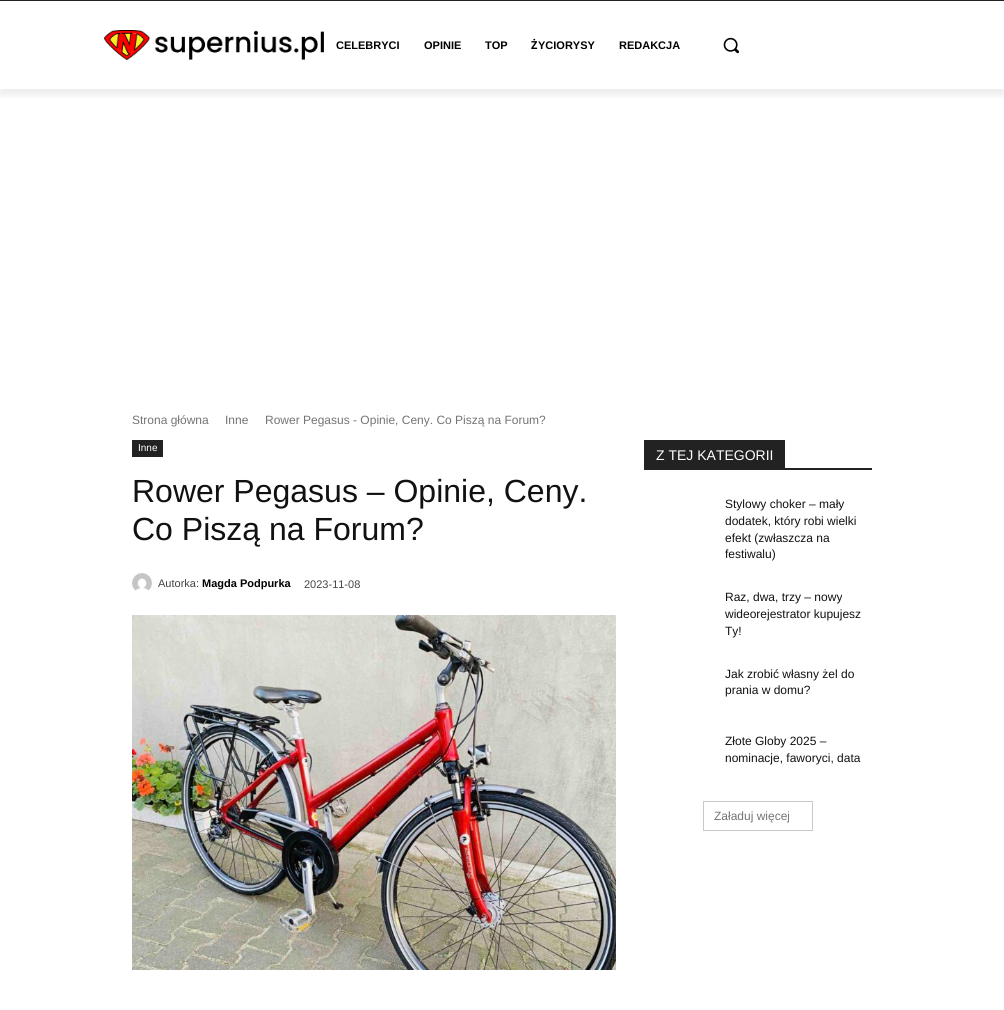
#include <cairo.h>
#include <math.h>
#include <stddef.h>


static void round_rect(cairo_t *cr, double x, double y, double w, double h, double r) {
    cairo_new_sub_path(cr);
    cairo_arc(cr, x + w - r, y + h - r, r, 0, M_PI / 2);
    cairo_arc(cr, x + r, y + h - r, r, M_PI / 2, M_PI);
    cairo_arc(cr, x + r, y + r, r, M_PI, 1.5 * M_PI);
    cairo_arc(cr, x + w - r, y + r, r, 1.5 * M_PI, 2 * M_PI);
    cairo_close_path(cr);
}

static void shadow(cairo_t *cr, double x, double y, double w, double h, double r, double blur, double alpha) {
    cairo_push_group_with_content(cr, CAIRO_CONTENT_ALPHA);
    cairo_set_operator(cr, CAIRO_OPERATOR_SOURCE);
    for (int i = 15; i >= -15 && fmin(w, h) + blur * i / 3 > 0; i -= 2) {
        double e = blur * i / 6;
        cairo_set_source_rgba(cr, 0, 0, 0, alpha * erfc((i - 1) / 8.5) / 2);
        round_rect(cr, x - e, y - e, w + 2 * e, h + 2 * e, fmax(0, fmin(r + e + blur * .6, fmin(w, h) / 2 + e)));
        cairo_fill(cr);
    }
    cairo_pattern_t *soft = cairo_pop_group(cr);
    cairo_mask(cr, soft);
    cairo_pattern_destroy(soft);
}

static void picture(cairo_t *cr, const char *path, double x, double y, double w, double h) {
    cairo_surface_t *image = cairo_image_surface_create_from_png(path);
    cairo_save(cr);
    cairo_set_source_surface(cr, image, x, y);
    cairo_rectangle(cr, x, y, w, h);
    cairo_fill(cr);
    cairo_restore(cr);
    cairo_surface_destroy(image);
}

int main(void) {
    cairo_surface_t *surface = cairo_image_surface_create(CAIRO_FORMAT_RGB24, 1004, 1010);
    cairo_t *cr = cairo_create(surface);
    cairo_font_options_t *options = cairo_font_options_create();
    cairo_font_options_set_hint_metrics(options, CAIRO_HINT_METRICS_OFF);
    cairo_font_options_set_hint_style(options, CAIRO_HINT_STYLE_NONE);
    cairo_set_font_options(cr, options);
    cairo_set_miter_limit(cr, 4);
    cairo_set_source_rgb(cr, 1, 1, 1);
    cairo_paint(cr);
    cairo_set_source_rgb(cr, 0.133, 0.133, 0.133);
    cairo_rectangle(cr, 0, 0, 1004, 1);
    cairo_fill(cr);
    picture(cr, "img1.png", 104, 30, 220, 30);
    cairo_save(cr);
    cairo_rectangle(cr, 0, 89, 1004, 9);
    cairo_clip(cr);
    cairo_set_source_rgb(cr, 0, 0, 0);
    shadow(cr, 0, 6, 1004, 89, 0, 4, 0.08);
    cairo_restore(cr);
    cairo_select_font_face(cr, "Liberation Sans", CAIRO_FONT_SLANT_NORMAL, CAIRO_FONT_WEIGHT_BOLD);
    cairo_set_font_size(cr, 11);
    cairo_set_source_rgb(cr, 0, 0, 0);
    cairo_move_to(cr, 336, 49);
    cairo_show_text(cr, "CELEBRYCI");
    cairo_move_to(cr, 424, 49);
    cairo_show_text(cr, "OPINIE");
    cairo_move_to(cr, 485, 49);
    cairo_show_text(cr, "TOP");
    cairo_select_font_face(cr, "Open Sans", CAIRO_FONT_SLANT_NORMAL, CAIRO_FONT_WEIGHT_BOLD);
    cairo_move_to(cr, 531, 49);
    cairo_show_text(cr, "Ż");
    cairo_select_font_face(cr, "Liberation Sans", CAIRO_FONT_SLANT_NORMAL, CAIRO_FONT_WEIGHT_BOLD);
    cairo_move_to(cr, 538, 49);
    cairo_show_text(cr, "YCIORYSY");
    cairo_move_to(cr, 619, 49);
    cairo_show_text(cr, "REDAKCJA");
    picture(cr, "img2.png", 723, 37, 16, 17);
    cairo_select_font_face(cr, "Liberation Sans", CAIRO_FONT_SLANT_NORMAL, CAIRO_FONT_WEIGHT_NORMAL);
    cairo_set_font_size(cr, 12);
    cairo_set_source_rgb(cr, 0.455, 0.455, 0.455);
    cairo_move_to(cr, 132, 424);
    cairo_show_text(cr, "Strona główna");
    cairo_move_to(cr, 225, 424);
    cairo_show_text(cr, "Inne");
    cairo_move_to(cr, 265, 424);
    cairo_show_text(cr, "Rower Pegasus - Opinie, Ceny. Co Piszą na Forum?");
    cairo_set_source_rgb(cr, 0.133, 0.133, 0.133);
    cairo_rectangle(cr, 132, 440, 31, 17);
    cairo_fill(cr);
    cairo_set_font_size(cr, 10);
    cairo_set_source_rgb(cr, 1, 1, 1);
    cairo_move_to(cr, 138, 451);
    cairo_show_text(cr, "Inne");
    cairo_set_font_size(cr, 32);
    cairo_set_source_rgb(cr, 0.067, 0.067, 0.067);
    cairo_move_to(cr, 132, 502);
    cairo_show_text(cr, "Rower Pegasus – Opinie, Ceny.");
    cairo_move_to(cr, 132, 540);
    cairo_show_text(cr, "Co Piszą na Forum?");
    picture(cr, "img3.png", 132, 573, 20, 18);
    cairo_set_font_size(cr, 11);
    cairo_set_source_rgb(cr, 0.267, 0.267, 0.267);
    cairo_move_to(cr, 158, 587);
    cairo_show_text(cr, "Autorka:");
    cairo_select_font_face(cr, "Liberation Sans", CAIRO_FONT_SLANT_NORMAL, CAIRO_FONT_WEIGHT_BOLD);
    cairo_set_source_rgb(cr, 0, 0, 0);
    cairo_move_to(cr, 202, 587);
    cairo_show_text(cr, "Magda Podpurka");
    cairo_select_font_face(cr, "Liberation Sans", CAIRO_FONT_SLANT_NORMAL, CAIRO_FONT_WEIGHT_NORMAL);
    cairo_set_source_rgb(cr, 0.267, 0.267, 0.267);
    cairo_move_to(cr, 304, 588);
    cairo_show_text(cr, "2023-11-08");
    picture(cr, "img4.png", 132, 615, 484, 355);
    cairo_set_source_rgb(cr, 0.133, 0.133, 0.133);
    cairo_rectangle(cr, 644, 468, 228, 2);
    cairo_fill(cr);
    cairo_rectangle(cr, 644, 440, 141, 28);
    cairo_fill(cr);
    cairo_set_font_size(cr, 14);
    cairo_set_source_rgb(cr, 1, 1, 1);
    cairo_move_to(cr, 656, 460);
    cairo_show_text(cr, "Z TEJ KATEGORII");
    cairo_set_font_size(cr, 12);
    cairo_set_source_rgb(cr, 0.067, 0.067, 0.067);
    cairo_move_to(cr, 725, 508);
    cairo_show_text(cr, "Stylowy choker – mały");
    cairo_move_to(cr, 725, 525);
    cairo_show_text(cr, "dodatek, który robi wielki");
    cairo_move_to(cr, 725, 542);
    cairo_show_text(cr, "efekt (zwłaszcza na");
    cairo_move_to(cr, 725, 558);
    cairo_show_text(cr, "festiwalu)");
    cairo_move_to(cr, 725, 601);
    cairo_show_text(cr, "Raz, dwa, trzy – nowy");
    cairo_move_to(cr, 725, 618);
    cairo_show_text(cr, "wideorejestrator kupujesz");
    cairo_move_to(cr, 725, 635);
    cairo_show_text(cr, "Ty!");
    cairo_move_to(cr, 725, 678);
    cairo_show_text(cr, "Jak zrobić własny żel do");
    cairo_move_to(cr, 725, 694);
    cairo_show_text(cr, "prania w domu?");
    cairo_move_to(cr, 725, 745);
    cairo_show_text(cr, "Złote Globy 2025 –");
    cairo_move_to(cr, 725, 762);
    cairo_show_text(cr, "nominacje, faworyci, data");
    cairo_rectangle(cr, 703.5, 801.5, 109, 29);
    cairo_set_source_rgb(cr, 0.788, 0.788, 0.788);
    cairo_set_line_width(cr, 1);
    cairo_stroke(cr);
    cairo_set_source_rgb(cr, 0.455, 0.455, 0.455);
    cairo_move_to(cr, 714, 820);
    cairo_show_text(cr, "Załaduj więcej");
    cairo_surface_write_to_png(surface, "page.png");
    cairo_font_options_destroy(options);
    cairo_destroy(cr);
    cairo_surface_destroy(surface);
    return 0;
}
